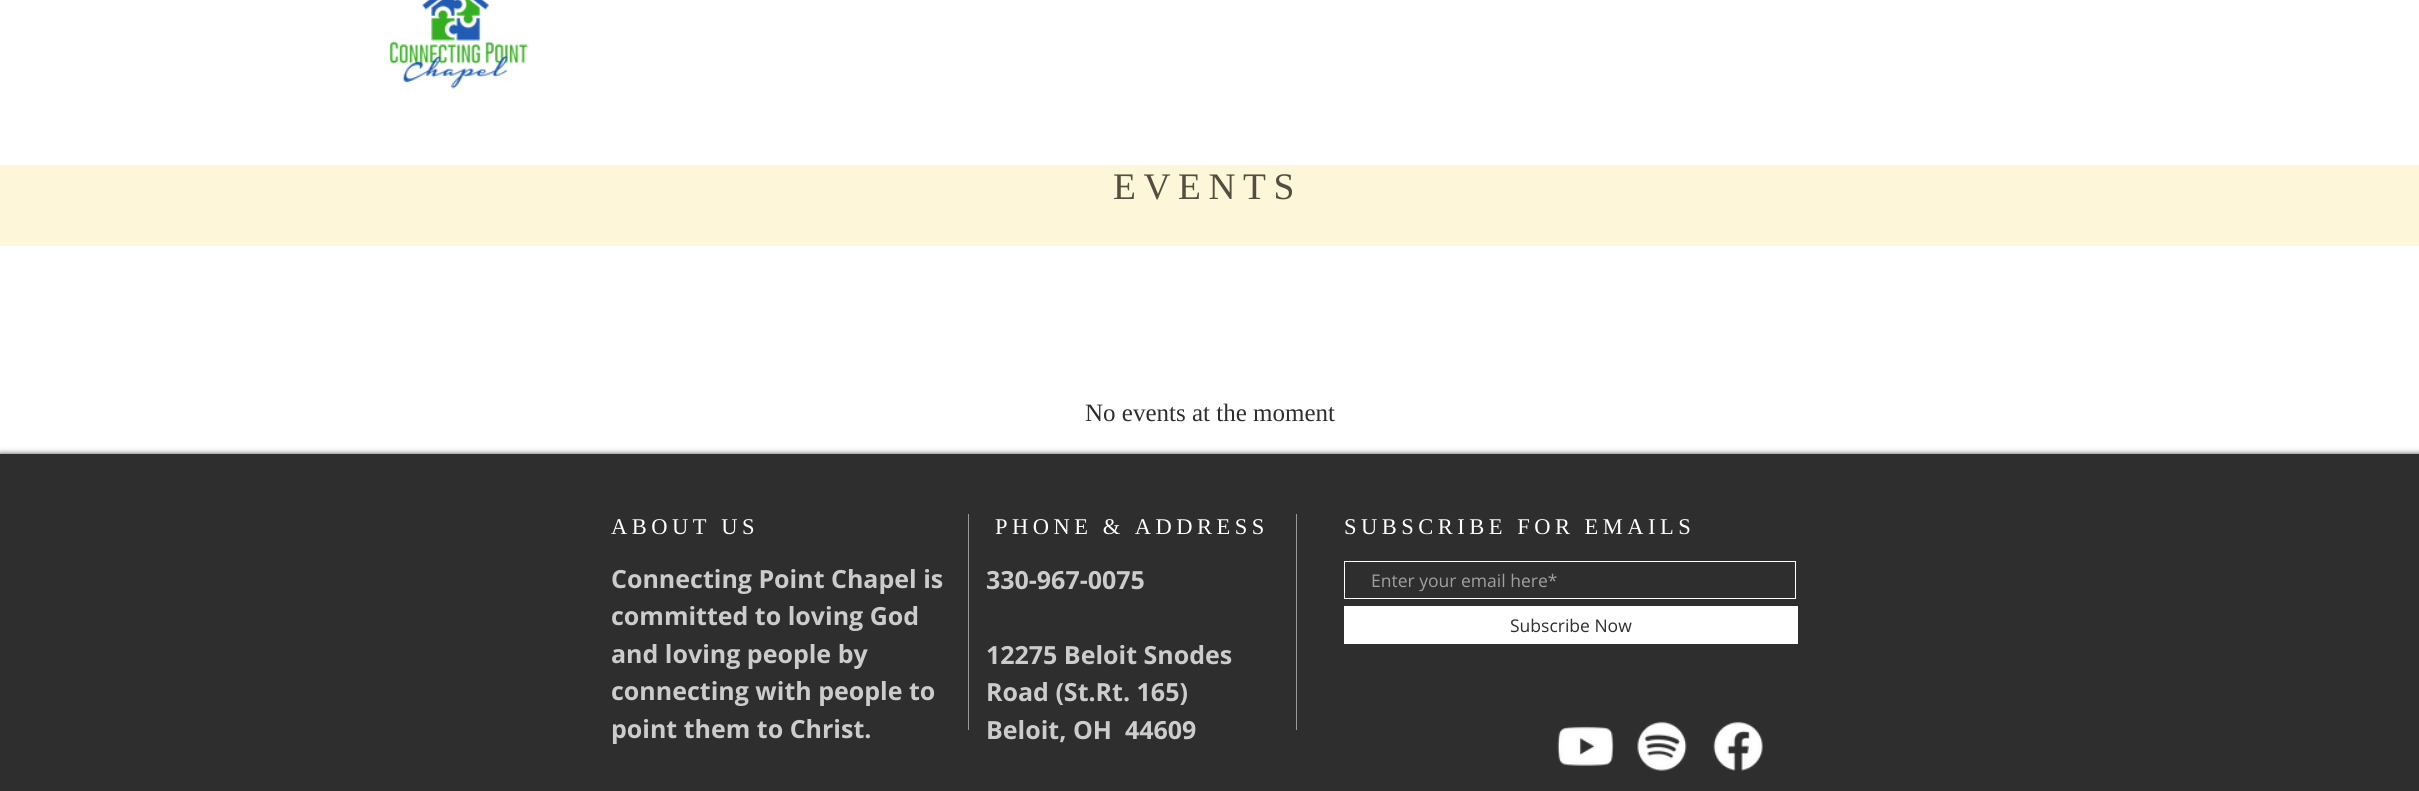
#include <cairo.h>
#include <math.h>
#include <stddef.h>


static void spaced_text(cairo_t *cr, double x, double y, const char *s, double letter, double word) {
    cairo_move_to(cr, x, y);
    while (*s) {
        char ch[5] = {0};
        int n = 0;
        do ch[n++] = *s++; while ((*s & 0xC0) == 0x80);
        cairo_show_text(cr, ch);
        cairo_rel_move_to(cr, letter + word * (*ch == ' '), 0);
    }
}

static void round_rect(cairo_t *cr, double x, double y, double w, double h, double r) {
    cairo_new_sub_path(cr);
    cairo_arc(cr, x + w - r, y + h - r, r, 0, M_PI / 2);
    cairo_arc(cr, x + r, y + h - r, r, M_PI / 2, M_PI);
    cairo_arc(cr, x + r, y + r, r, M_PI, 1.5 * M_PI);
    cairo_arc(cr, x + w - r, y + r, r, 1.5 * M_PI, 2 * M_PI);
    cairo_close_path(cr);
}

static void shadow(cairo_t *cr, double x, double y, double w, double h, double r, double blur, double alpha) {
    cairo_push_group_with_content(cr, CAIRO_CONTENT_ALPHA);
    cairo_set_operator(cr, CAIRO_OPERATOR_SOURCE);
    for (int i = 15; i >= -15 && fmin(w, h) + blur * i / 3 > 0; i -= 2) {
        double e = blur * i / 6;
        cairo_set_source_rgba(cr, 0, 0, 0, alpha * erfc((i - 1) / 8.5) / 2);
        round_rect(cr, x - e, y - e, w + 2 * e, h + 2 * e, fmax(0, fmin(r + e + blur * .6, fmin(w, h) / 2 + e)));
        cairo_fill(cr);
    }
    cairo_pattern_t *soft = cairo_pop_group(cr);
    cairo_mask(cr, soft);
    cairo_pattern_destroy(soft);
}

static void picture(cairo_t *cr, const char *path, double x, double y, double w, double h) {
    cairo_surface_t *image = cairo_image_surface_create_from_png(path);
    cairo_save(cr);
    cairo_set_source_surface(cr, image, x, y);
    cairo_rectangle(cr, x, y, w, h);
    cairo_fill(cr);
    cairo_restore(cr);
    cairo_surface_destroy(image);
}

int main(void) {
    cairo_surface_t *surface = cairo_image_surface_create(CAIRO_FORMAT_RGB24, 2419, 791);
    cairo_t *cr = cairo_create(surface);
    cairo_font_options_t *options = cairo_font_options_create();
    cairo_font_options_set_hint_metrics(options, CAIRO_HINT_METRICS_OFF);
    cairo_font_options_set_hint_style(options, CAIRO_HINT_STYLE_NONE);
    cairo_set_font_options(cr, options);
    cairo_set_miter_limit(cr, 4);
    cairo_set_source_rgb(cr, 1, 1, 1);
    cairo_paint(cr);
    picture(cr, "img1.png", 389, 0, 139, 89);
    cairo_set_source_rgb(cr, 0.992, 0.961, 0.851);
    cairo_rectangle(cr, 0, 165, 2419, 81);
    cairo_fill(cr);
    cairo_select_font_face(cr, "Liberation Serif", CAIRO_FONT_SLANT_NORMAL, CAIRO_FONT_WEIGHT_NORMAL);
    cairo_set_font_size(cr, 37.5);
    cairo_set_source_rgb(cr, 0.325, 0.306, 0.251);
    spaced_text(cr, 1113, 199, "EVENTS", 7.5, 0);
    cairo_set_font_size(cr, 25);
    cairo_set_source_rgb(cr, 0.184, 0.18, 0.18);
    cairo_move_to(cr, 1085, 421);
    cairo_show_text(cr, "No events at the moment");
    cairo_set_source_rgb(cr, 0, 0, 0);
    shadow(cr, 0, 454, 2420, 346, 0, 3, 0.7);
    cairo_set_source_rgb(cr, 0.184, 0.18, 0.18);
    cairo_rectangle(cr, 0, 454, 2419, 337);
    cairo_fill(cr);
    cairo_set_font_size(cr, 22.5);
    cairo_set_source_rgb(cr, 1, 1, 1);
    spaced_text(cr, 611, 534, "ABOUT US", 4.5, 0);
    cairo_set_source_rgb(cr, 0.6, 0.6, 0.6);
    cairo_rectangle(cr, 968, 514, 1, 216);
    cairo_fill(cr);
    cairo_set_source_rgb(cr, 1, 1, 1);
    spaced_text(cr, 995, 534, "PHONE & ADDRESS", 4.5, 0);
    cairo_set_source_rgb(cr, 0.6, 0.6, 0.6);
    cairo_rectangle(cr, 1296, 514, 1, 216);
    cairo_fill(cr);
    cairo_set_source_rgb(cr, 1, 1, 1);
    spaced_text(cr, 1344, 534, "SUBSCRIBE FOR EMAILS", 4.5, 0);
    cairo_rectangle(cr, 1344.5, 561.5, 451, 37);
    cairo_set_line_width(cr, 1);
    cairo_stroke(cr);
    cairo_select_font_face(cr, "Open Sans", CAIRO_FONT_SLANT_NORMAL, CAIRO_FONT_WEIGHT_NORMAL);
    cairo_set_font_size(cr, 17.5);
    cairo_set_source_rgb(cr, 0.627, 0.627, 0.624);
    cairo_move_to(cr, 1371, 587);
    cairo_show_text(cr, "Enter your email here*");
    cairo_set_source_rgb(cr, 1, 1, 1);
    cairo_rectangle(cr, 1344, 606, 454, 38);
    cairo_fill(cr);
    cairo_set_source_rgb(cr, 0.184, 0.18, 0.18);
    cairo_move_to(cr, 1510, 632);
    cairo_show_text(cr, "Subscribe Now");
    cairo_select_font_face(cr, "Open Sans", CAIRO_FONT_SLANT_NORMAL, CAIRO_FONT_WEIGHT_BOLD);
    cairo_set_font_size(cr, 25);
    cairo_set_source_rgb(cr, 0.8, 0.8, 0.8);
    cairo_move_to(cr, 611, 588);
    cairo_show_text(cr, "Connecting Point Chapel is");
    cairo_move_to(cr, 611, 625);
    cairo_show_text(cr, "committed to loving God");
    cairo_move_to(cr, 611, 663);
    cairo_show_text(cr, "and loving people by");
    cairo_move_to(cr, 611, 700);
    cairo_show_text(cr, "connecting with people to");
    cairo_move_to(cr, 611, 738);
    cairo_show_text(cr, "point them to Christ.");
    cairo_move_to(cr, 986, 589);
    cairo_show_text(cr, "330-967-0075");
    cairo_move_to(cr, 986, 664);
    cairo_show_text(cr, "12275 Beloit Snodes");
    cairo_move_to(cr, 986, 701);
    cairo_show_text(cr, "Road (St.Rt. 165)");
    cairo_move_to(cr, 986, 739);
    cairo_show_text(cr, "Beloit, OH  44609");
    picture(cr, "img2.png", 1557, 726, 57, 40);
    picture(cr, "img3.png", 1637, 721, 50, 50);
    picture(cr, "img4.png", 1713, 721, 50, 50);
    cairo_surface_write_to_png(surface, "page.png");
    cairo_font_options_destroy(options);
    cairo_destroy(cr);
    cairo_surface_destroy(surface);
    return 0;
}
